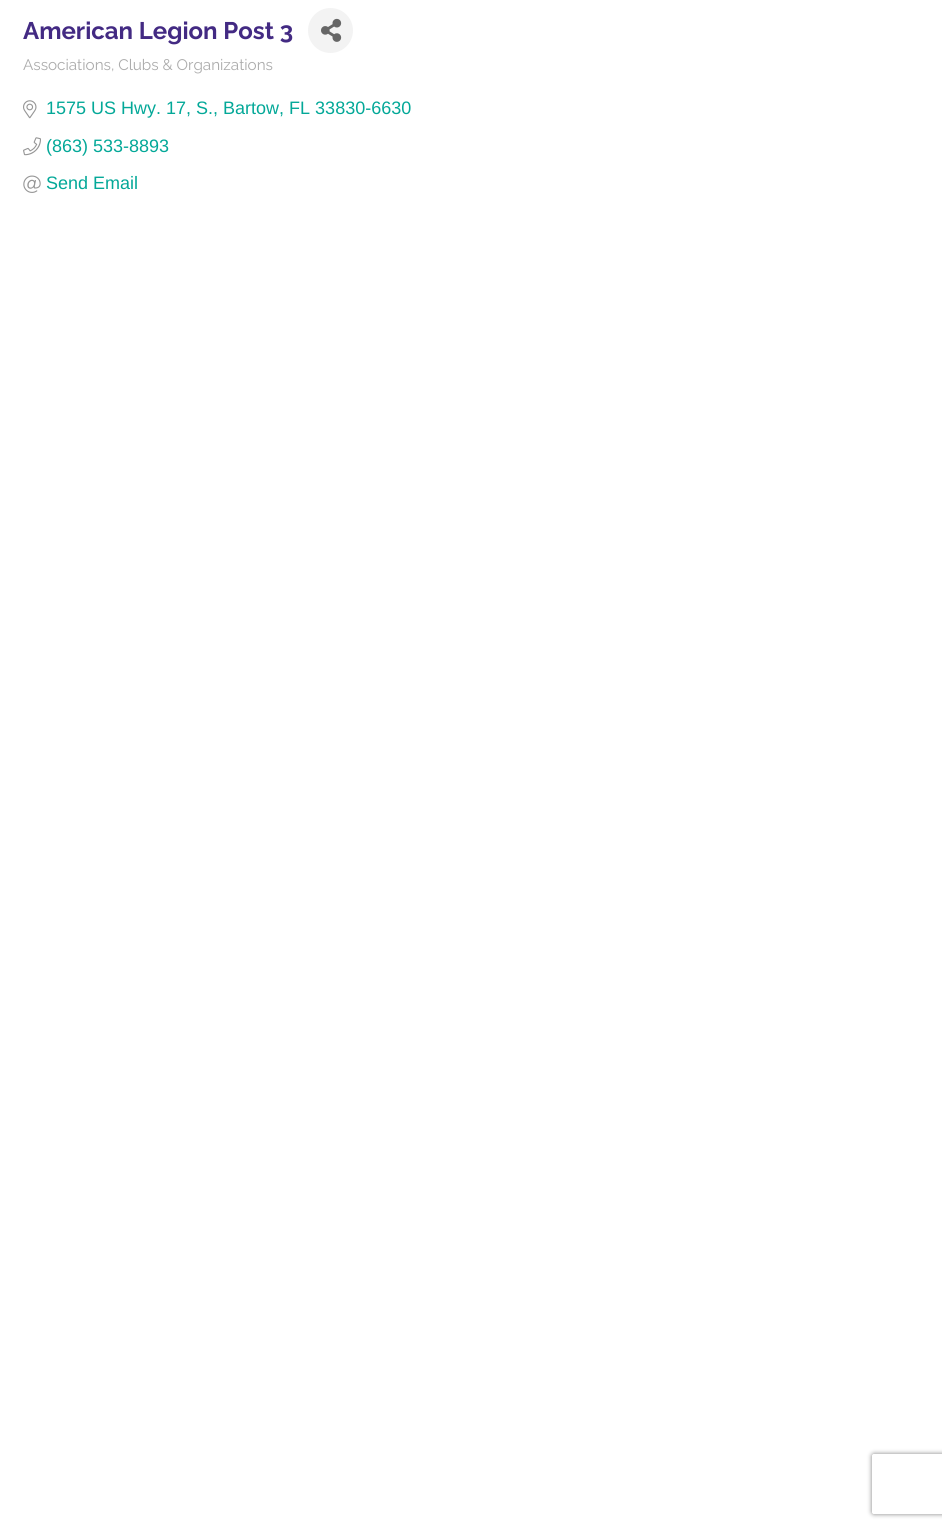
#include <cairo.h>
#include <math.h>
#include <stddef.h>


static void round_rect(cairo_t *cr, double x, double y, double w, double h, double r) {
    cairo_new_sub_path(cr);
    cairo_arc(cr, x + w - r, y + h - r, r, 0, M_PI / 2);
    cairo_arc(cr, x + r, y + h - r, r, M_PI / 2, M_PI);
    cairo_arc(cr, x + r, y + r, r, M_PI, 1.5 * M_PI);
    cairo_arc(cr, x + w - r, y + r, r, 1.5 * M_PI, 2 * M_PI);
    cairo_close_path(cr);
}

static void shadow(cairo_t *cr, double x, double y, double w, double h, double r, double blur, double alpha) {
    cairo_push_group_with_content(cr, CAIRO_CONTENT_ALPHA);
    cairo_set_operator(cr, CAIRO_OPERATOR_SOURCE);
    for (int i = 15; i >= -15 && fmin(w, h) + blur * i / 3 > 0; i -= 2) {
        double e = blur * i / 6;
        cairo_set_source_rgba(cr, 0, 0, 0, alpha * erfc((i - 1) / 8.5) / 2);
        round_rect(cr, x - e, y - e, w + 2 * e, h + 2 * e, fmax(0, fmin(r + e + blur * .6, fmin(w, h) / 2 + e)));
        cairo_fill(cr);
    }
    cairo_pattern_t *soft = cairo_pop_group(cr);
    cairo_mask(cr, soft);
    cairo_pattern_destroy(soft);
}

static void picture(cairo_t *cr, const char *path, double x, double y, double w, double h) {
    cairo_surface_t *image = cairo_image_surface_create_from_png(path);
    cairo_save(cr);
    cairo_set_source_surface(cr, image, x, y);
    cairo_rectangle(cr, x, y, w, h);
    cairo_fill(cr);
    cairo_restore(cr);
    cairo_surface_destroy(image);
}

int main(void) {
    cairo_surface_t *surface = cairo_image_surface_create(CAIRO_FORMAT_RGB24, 942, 1528);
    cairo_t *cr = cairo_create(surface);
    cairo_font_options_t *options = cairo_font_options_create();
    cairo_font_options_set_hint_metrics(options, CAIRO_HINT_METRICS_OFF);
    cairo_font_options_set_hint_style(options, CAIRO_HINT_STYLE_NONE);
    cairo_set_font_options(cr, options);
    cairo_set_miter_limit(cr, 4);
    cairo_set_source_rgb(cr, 1, 1, 1);
    cairo_paint(cr);
    cairo_select_font_face(cr, "Raleway", CAIRO_FONT_SLANT_NORMAL, CAIRO_FONT_WEIGHT_BOLD);
    cairo_set_font_size(cr, 24);
    cairo_set_source_rgb(cr, 0.263, 0.165, 0.514);
    cairo_move_to(cr, 23, 39);
    cairo_show_text(cr, "American Legion Post 3");
    cairo_set_source_rgb(cr, 0.953, 0.953, 0.953);
    cairo_new_path(cr);
    cairo_arc(cr, 330.5, 30.5, 22.5, 0, 2 * M_PI);
    cairo_fill(cr);
    picture(cr, "img1.png", 321, 18, 21, 24);
    cairo_select_font_face(cr, "Raleway", CAIRO_FONT_SLANT_NORMAL, CAIRO_FONT_WEIGHT_NORMAL);
    cairo_set_font_size(cr, 15.25);
    cairo_set_source_rgb(cr, 0.671, 0.671, 0.671);
    cairo_move_to(cr, 23, 70);
    cairo_show_text(cr, "Associations, Clubs & Organizations");
    picture(cr, "img2.png", 23, 100, 14, 19);
    cairo_select_font_face(cr, "Liberation Sans", CAIRO_FONT_SLANT_NORMAL, CAIRO_FONT_WEIGHT_NORMAL);
    cairo_set_font_size(cr, 18);
    cairo_set_source_rgb(cr, 0.012, 0.659, 0.596);
    cairo_move_to(cr, 46, 114);
    cairo_show_text(cr, "1575 US Hwy. 17, S., Bartow, FL 33830-6630");
    picture(cr, "img3.png", 23, 137, 18, 19);
    cairo_move_to(cr, 46, 152);
    cairo_show_text(cr, "(863) 533-8893");
    picture(cr, "img4.png", 23, 175, 18, 18);
    cairo_move_to(cr, 46, 189);
    cairo_show_text(cr, "Send Email");
    cairo_save(cr);
    cairo_set_fill_rule(cr, CAIRO_FILL_RULE_EVEN_ODD);
    cairo_new_path(cr);
    cairo_move_to(cr, 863, 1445);
    cairo_line_to(cr, 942, 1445);
    cairo_line_to(cr, 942, 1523);
    cairo_line_to(cr, 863, 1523);
    cairo_close_path(cr);
    cairo_move_to(cr, 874, 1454);
    cairo_line_to(cr, 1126, 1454);
    cairo_curve_to(cr, 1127, 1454, 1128, 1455, 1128, 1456);
    cairo_line_to(cr, 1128, 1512);
    cairo_curve_to(cr, 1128, 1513, 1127, 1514, 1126, 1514);
    cairo_line_to(cr, 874, 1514);
    cairo_curve_to(cr, 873, 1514, 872, 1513, 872, 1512);
    cairo_line_to(cr, 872, 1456);
    cairo_curve_to(cr, 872, 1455, 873, 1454, 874, 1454);
    cairo_close_path(cr);
    cairo_clip(cr);
    cairo_set_source_rgb(cr, 0.502, 0.502, 0.502);
    shadow(cr, 872, 1454, 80, 60, 2, 2.5, 1);
    cairo_restore(cr);
    cairo_surface_write_to_png(surface, "page.png");
    cairo_font_options_destroy(options);
    cairo_destroy(cr);
    cairo_surface_destroy(surface);
    return 0;
}
